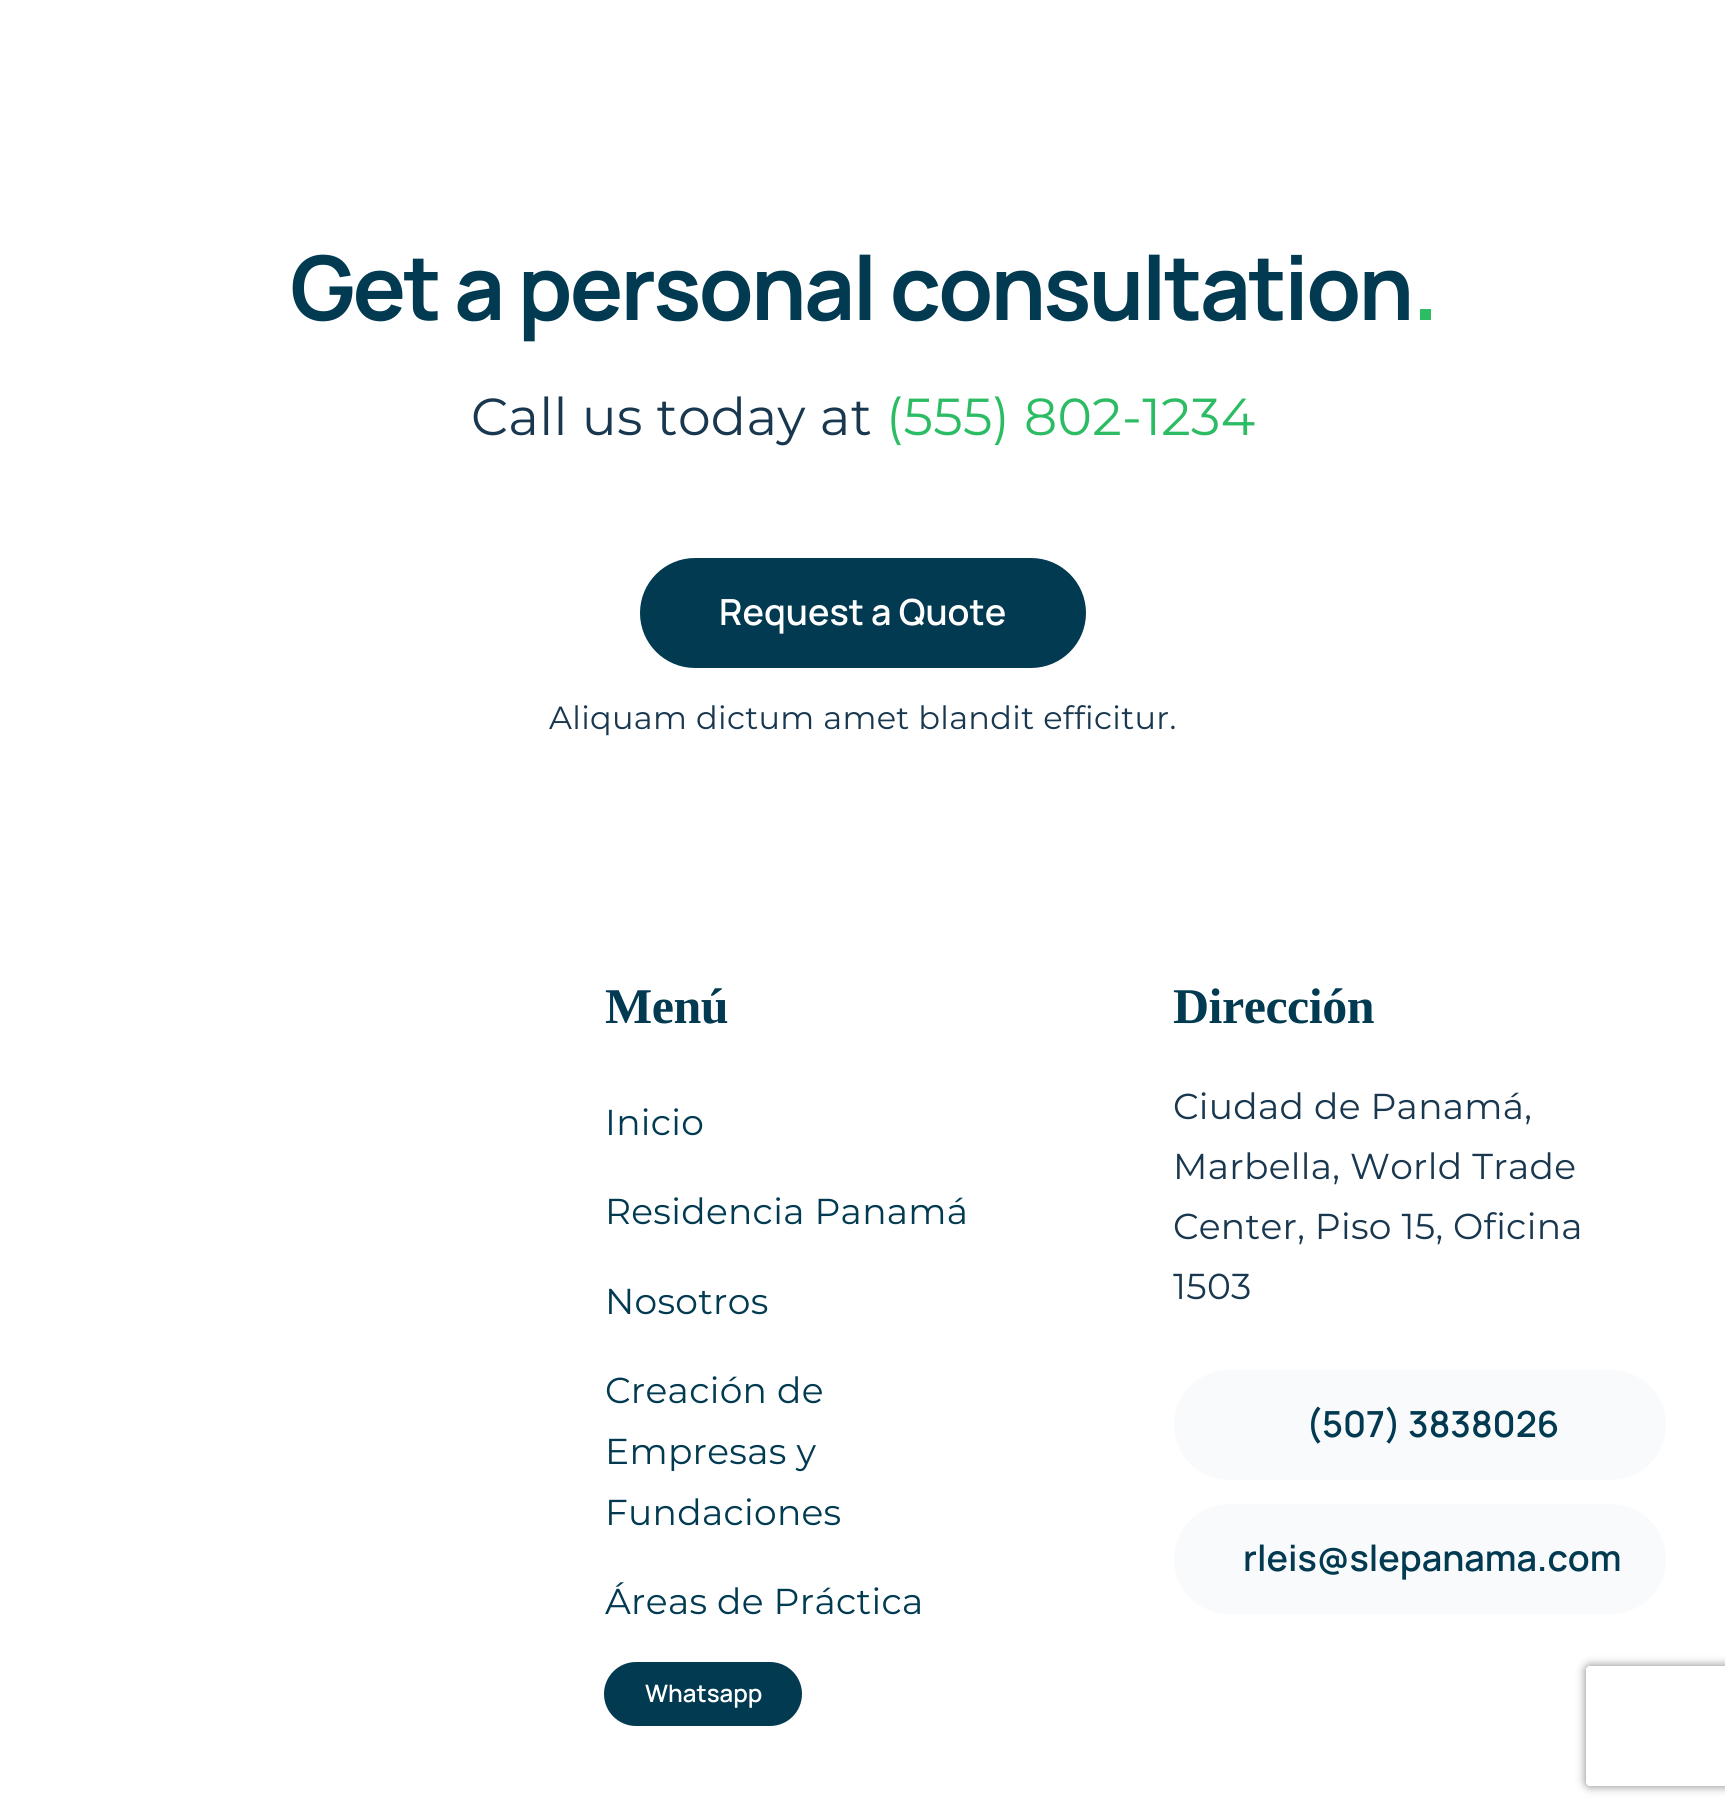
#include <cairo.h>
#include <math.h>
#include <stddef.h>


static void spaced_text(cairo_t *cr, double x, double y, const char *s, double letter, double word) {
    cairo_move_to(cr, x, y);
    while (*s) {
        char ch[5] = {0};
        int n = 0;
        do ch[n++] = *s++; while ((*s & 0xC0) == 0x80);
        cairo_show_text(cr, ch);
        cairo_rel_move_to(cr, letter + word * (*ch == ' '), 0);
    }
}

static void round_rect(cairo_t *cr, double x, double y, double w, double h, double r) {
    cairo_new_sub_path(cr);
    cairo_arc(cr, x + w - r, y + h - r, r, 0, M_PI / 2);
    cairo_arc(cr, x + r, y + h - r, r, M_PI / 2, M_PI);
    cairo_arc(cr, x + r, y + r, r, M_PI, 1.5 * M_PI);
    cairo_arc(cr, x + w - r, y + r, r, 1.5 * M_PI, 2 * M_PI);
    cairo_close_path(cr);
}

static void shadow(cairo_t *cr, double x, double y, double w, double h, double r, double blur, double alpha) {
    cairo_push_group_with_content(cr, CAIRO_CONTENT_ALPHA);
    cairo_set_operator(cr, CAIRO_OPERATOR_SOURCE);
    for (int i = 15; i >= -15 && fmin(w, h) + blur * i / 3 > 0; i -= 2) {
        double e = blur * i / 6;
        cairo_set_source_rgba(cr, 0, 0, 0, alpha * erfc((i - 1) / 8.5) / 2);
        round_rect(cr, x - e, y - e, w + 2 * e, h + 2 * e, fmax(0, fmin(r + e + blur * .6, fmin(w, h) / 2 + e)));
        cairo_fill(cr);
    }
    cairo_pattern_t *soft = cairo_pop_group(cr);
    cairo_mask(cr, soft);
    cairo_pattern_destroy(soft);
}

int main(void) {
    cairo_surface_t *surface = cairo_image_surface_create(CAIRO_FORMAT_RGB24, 1725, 1814);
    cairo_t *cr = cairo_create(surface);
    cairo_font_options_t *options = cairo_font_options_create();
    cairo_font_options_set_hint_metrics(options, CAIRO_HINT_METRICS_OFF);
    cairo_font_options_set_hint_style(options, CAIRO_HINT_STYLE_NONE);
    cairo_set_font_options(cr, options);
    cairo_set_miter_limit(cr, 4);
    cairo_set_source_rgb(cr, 1, 1, 1);
    cairo_paint(cr);
    cairo_select_font_face(cr, "Manrope", CAIRO_FONT_SLANT_NORMAL, CAIRO_FONT_WEIGHT_BOLD);
    cairo_set_font_size(cr, 88.9);
    cairo_set_source_rgb(cr, 0.008, 0.227, 0.318);
    spaced_text(cr, 290, 320, "Get a personal consultation", -2.7, 0);
    cairo_set_source_rgb(cr, 0.173, 0.737, 0.388);
    spaced_text(cr, 1412, 320, ".", -2.7, 0);
    cairo_select_font_face(cr, "Montserrat", CAIRO_FONT_SLANT_NORMAL, CAIRO_FONT_WEIGHT_NORMAL);
    cairo_set_font_size(cr, 52);
    cairo_set_source_rgb(cr, 0.098, 0.22, 0.31);
    spaced_text(cr, 471, 435, "Call us today at", 0.3, 0);
    cairo_set_source_rgb(cr, 0.173, 0.737, 0.388);
    spaced_text(cr, 886, 435, "(555) 802-1234", 0.3, 0);
    cairo_set_source_rgb(cr, 0.008, 0.227, 0.318);
    round_rect(cr, 640, 558, 446, 110, 55);
    cairo_fill(cr);
    cairo_select_font_face(cr, "Manrope SemiBold", CAIRO_FONT_SLANT_NORMAL, CAIRO_FONT_WEIGHT_NORMAL);
    cairo_set_font_size(cr, 36);
    cairo_set_source_rgb(cr, 1, 1, 1);
    cairo_move_to(cr, 719, 625);
    cairo_show_text(cr, "Request a Quote");
    cairo_select_font_face(cr, "Montserrat", CAIRO_FONT_SLANT_NORMAL, CAIRO_FONT_WEIGHT_NORMAL);
    cairo_set_font_size(cr, 32);
    cairo_set_source_rgb(cr, 0.098, 0.22, 0.31);
    spaced_text(cr, 549, 729, "Aliquam dictum amet blandit efficitur.", 0.3, 0);
    cairo_select_font_face(cr, "Liberation Serif", CAIRO_FONT_SLANT_NORMAL, CAIRO_FONT_WEIGHT_BOLD);
    cairo_set_font_size(cr, 50);
    cairo_set_source_rgb(cr, 0.008, 0.227, 0.318);
    spaced_text(cr, 605, 1023, "Menú", -0.5, 0);
    cairo_select_font_face(cr, "Montserrat", CAIRO_FONT_SLANT_NORMAL, CAIRO_FONT_WEIGHT_NORMAL);
    cairo_set_font_size(cr, 36);
    spaced_text(cr, 605, 1135, "Inicio", 0.3, 0);
    spaced_text(cr, 605, 1224, "Residencia Panamá", 0.3, 0);
    spaced_text(cr, 605, 1314, "Nosotros", 0.3, 0);
    spaced_text(cr, 605, 1403, "Creación de", 0.3, 0);
    spaced_text(cr, 605, 1464, "Empresas y", 0.3, 0);
    spaced_text(cr, 605, 1525, "Fundaciones", 0.3, 0);
    spaced_text(cr, 605, 1614, "Áreas de Práctica", 0.3, 0);
    round_rect(cr, 604, 1662, 198, 64, 32);
    cairo_fill(cr);
    cairo_select_font_face(cr, "Manrope SemiBold", CAIRO_FONT_SLANT_NORMAL, CAIRO_FONT_WEIGHT_NORMAL);
    cairo_set_font_size(cr, 24);
    cairo_set_source_rgb(cr, 1, 1, 1);
    cairo_move_to(cr, 645, 1702);
    cairo_show_text(cr, "Whatsapp");
    cairo_select_font_face(cr, "Liberation Serif", CAIRO_FONT_SLANT_NORMAL, CAIRO_FONT_WEIGHT_BOLD);
    cairo_set_font_size(cr, 50);
    cairo_set_source_rgb(cr, 0.008, 0.227, 0.318);
    spaced_text(cr, 1173, 1023, "Dirección", -0.5, 0);
    cairo_select_font_face(cr, "Montserrat", CAIRO_FONT_SLANT_NORMAL, CAIRO_FONT_WEIGHT_NORMAL);
    cairo_set_font_size(cr, 36);
    cairo_set_source_rgb(cr, 0.098, 0.22, 0.31);
    spaced_text(cr, 1173, 1119, "Ciudad de Panamá,", 0.3, 0);
    spaced_text(cr, 1173, 1179, "Marbella, World Trade", 0.3, 0);
    spaced_text(cr, 1173, 1239, "Center, Piso 15, Oficina", 0.3, 0);
    spaced_text(cr, 1173, 1299, "1503", 0.3, 0);
    cairo_set_source_rgb(cr, 0.976, 0.98, 0.984);
    round_rect(cr, 1174, 1370, 492, 110, 55);
    cairo_fill(cr);
    cairo_select_font_face(cr, "Manrope SemiBold", CAIRO_FONT_SLANT_NORMAL, CAIRO_FONT_WEIGHT_NORMAL);
    cairo_set_source_rgb(cr, 0.008, 0.227, 0.318);
    cairo_move_to(cr, 1306, 1437);
    cairo_show_text(cr, "(507) 3838026");
    cairo_set_source_rgb(cr, 0.976, 0.98, 0.984);
    round_rect(cr, 1174, 1504, 492, 110, 55);
    cairo_fill(cr);
    cairo_set_source_rgb(cr, 0.008, 0.227, 0.318);
    cairo_move_to(cr, 1243, 1571);
    cairo_show_text(cr, "rleis@slepanama.com");
    cairo_save(cr);
    cairo_set_fill_rule(cr, CAIRO_FILL_RULE_EVEN_ODD);
    cairo_new_path(cr);
    cairo_move_to(cr, 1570, 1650);
    cairo_line_to(cr, 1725, 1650);
    cairo_line_to(cr, 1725, 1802);
    cairo_line_to(cr, 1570, 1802);
    cairo_close_path(cr);
    cairo_move_to(cr, 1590, 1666);
    cairo_line_to(cr, 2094, 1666);
    cairo_curve_to(cr, 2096, 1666, 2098, 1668, 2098, 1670);
    cairo_line_to(cr, 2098, 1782);
    cairo_curve_to(cr, 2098, 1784, 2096, 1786, 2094, 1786);
    cairo_line_to(cr, 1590, 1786);
    cairo_curve_to(cr, 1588, 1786, 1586, 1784, 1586, 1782);
    cairo_line_to(cr, 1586, 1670);
    cairo_curve_to(cr, 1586, 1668, 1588, 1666, 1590, 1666);
    cairo_close_path(cr);
    cairo_clip(cr);
    cairo_set_source_rgb(cr, 0.502, 0.502, 0.502);
    shadow(cr, 1586, 1666, 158, 120, 4, 5, 1);
    cairo_restore(cr);
    cairo_surface_write_to_png(surface, "page.png");
    cairo_font_options_destroy(options);
    cairo_destroy(cr);
    cairo_surface_destroy(surface);
    return 0;
}
